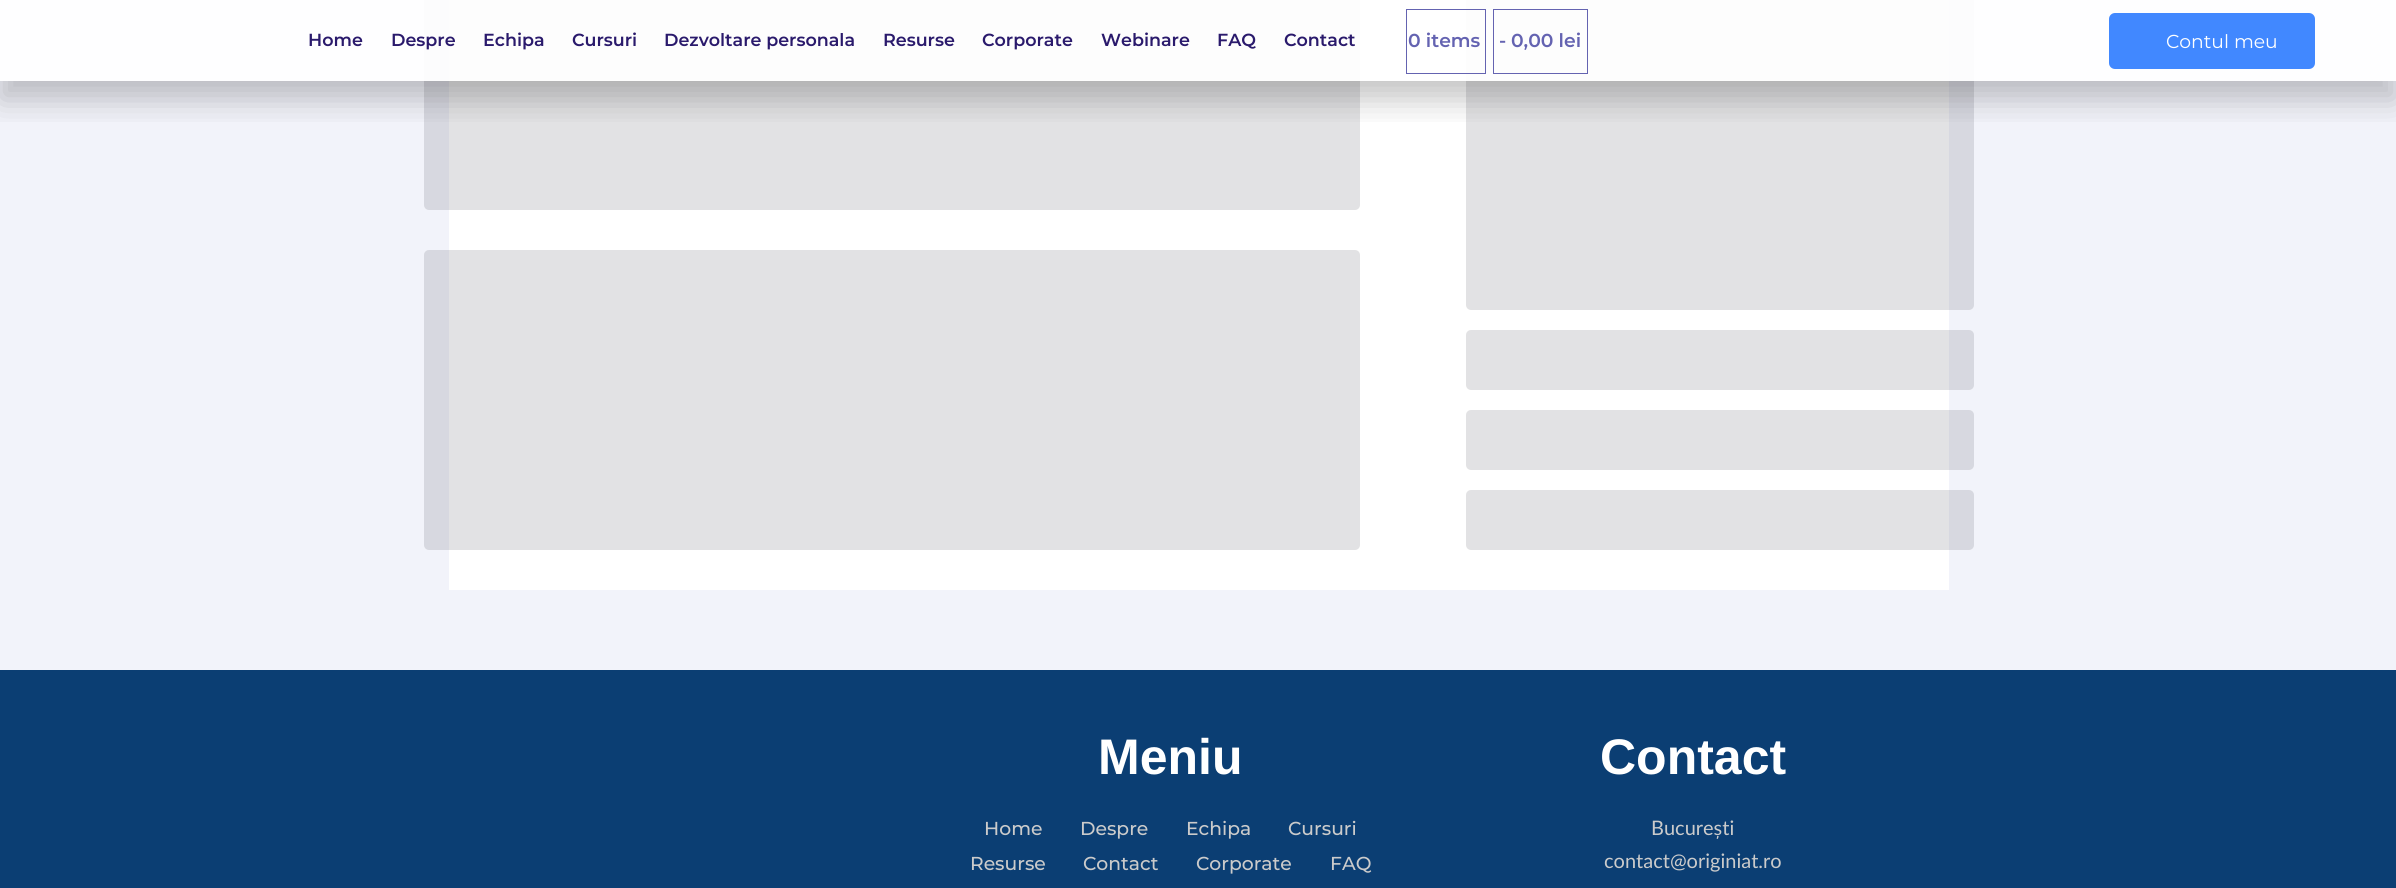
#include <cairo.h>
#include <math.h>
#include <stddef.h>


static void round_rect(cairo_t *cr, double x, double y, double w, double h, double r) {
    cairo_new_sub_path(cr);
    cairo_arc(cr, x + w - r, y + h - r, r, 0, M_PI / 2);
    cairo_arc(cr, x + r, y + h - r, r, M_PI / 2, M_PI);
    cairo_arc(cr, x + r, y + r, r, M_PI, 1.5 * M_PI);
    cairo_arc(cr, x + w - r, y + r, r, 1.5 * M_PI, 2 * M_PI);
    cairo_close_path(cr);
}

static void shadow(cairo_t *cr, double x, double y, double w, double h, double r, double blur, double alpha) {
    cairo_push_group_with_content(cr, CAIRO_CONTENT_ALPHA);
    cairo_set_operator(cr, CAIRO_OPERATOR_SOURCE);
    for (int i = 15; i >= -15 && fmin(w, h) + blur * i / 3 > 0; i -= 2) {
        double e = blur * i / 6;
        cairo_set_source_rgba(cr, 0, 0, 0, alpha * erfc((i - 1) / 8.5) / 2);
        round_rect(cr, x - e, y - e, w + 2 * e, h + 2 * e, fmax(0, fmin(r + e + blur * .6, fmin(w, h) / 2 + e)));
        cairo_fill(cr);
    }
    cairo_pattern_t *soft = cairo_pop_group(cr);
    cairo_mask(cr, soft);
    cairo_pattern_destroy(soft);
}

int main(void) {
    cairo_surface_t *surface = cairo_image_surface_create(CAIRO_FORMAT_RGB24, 2396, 888);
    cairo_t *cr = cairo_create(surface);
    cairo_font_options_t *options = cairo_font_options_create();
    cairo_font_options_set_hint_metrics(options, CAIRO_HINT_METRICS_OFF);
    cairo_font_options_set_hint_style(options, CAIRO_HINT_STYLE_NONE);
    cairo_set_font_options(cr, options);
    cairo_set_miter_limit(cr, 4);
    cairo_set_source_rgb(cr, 0.949, 0.953, 0.98);
    cairo_paint(cr);
    cairo_set_source_rgb(cr, 1, 1, 1);
    cairo_rectangle(cr, 449, 0, 1500, 590);
    cairo_fill(cr);
    cairo_set_source_rgba(cr, 0.239, 0.239, 0.306, 0.15);
    round_rect(cr, 424, -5, 936, 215, 5);
    cairo_fill(cr);
    round_rect(cr, 424, 250, 936, 300, 5);
    cairo_fill(cr);
    round_rect(cr, 1466, -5, 508, 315, 5);
    cairo_fill(cr);
    round_rect(cr, 1466, 330, 508, 60, 5);
    cairo_fill(cr);
    round_rect(cr, 1466, 410, 508, 60, 5);
    cairo_fill(cr);
    round_rect(cr, 1466, 490, 508, 60, 5);
    cairo_fill(cr);
    cairo_save(cr);
    cairo_rectangle(cr, 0, 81, 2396, 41);
    cairo_clip(cr);
    cairo_set_source_rgb(cr, 0, 0, 0);
    shadow(cr, 0, 19, 2396, 81, 0, 16, 0.23);
    cairo_restore(cr);
    cairo_set_source_rgba(cr, 1, 1, 1, 0.93);
    cairo_rectangle(cr, 0, 0, 2396, 81);
    cairo_fill(cr);
    cairo_select_font_face(cr, "Montserrat SemiBold", CAIRO_FONT_SLANT_NORMAL, CAIRO_FONT_WEIGHT_NORMAL);
    cairo_set_font_size(cr, 17.5);
    cairo_set_source_rgb(cr, 0.165, 0.102, 0.424);
    cairo_move_to(cr, 308, 46);
    cairo_show_text(cr, "Home");
    cairo_move_to(cr, 391, 46);
    cairo_show_text(cr, "Despre");
    cairo_move_to(cr, 483, 46);
    cairo_show_text(cr, "Echipa");
    cairo_move_to(cr, 572, 46);
    cairo_show_text(cr, "Cursuri");
    cairo_move_to(cr, 664, 46);
    cairo_show_text(cr, "Dezvoltare personala");
    cairo_move_to(cr, 883, 46);
    cairo_show_text(cr, "Resurse");
    cairo_move_to(cr, 982, 46);
    cairo_show_text(cr, "Corporate");
    cairo_move_to(cr, 1101, 46);
    cairo_show_text(cr, "Webinare");
    cairo_move_to(cr, 1217, 46);
    cairo_show_text(cr, "FAQ");
    cairo_move_to(cr, 1284, 46);
    cairo_show_text(cr, "Contact");
    cairo_rectangle(cr, 1406.5, 9.5, 79, 64);
    cairo_set_source_rgb(cr, 0.392, 0.388, 0.694);
    cairo_set_line_width(cr, 1);
    cairo_stroke(cr);
    cairo_set_font_size(cr, 18.75);
    cairo_move_to(cr, 1408, 47);
    cairo_show_text(cr, "0 items");
    cairo_rectangle(cr, 1493.5, 9.5, 94, 64);
    cairo_stroke(cr);
    cairo_move_to(cr, 1499, 47);
    cairo_show_text(cr, "-");
    cairo_move_to(cr, 1511, 47);
    cairo_show_text(cr, "0,00 lei");
    cairo_set_source_rgb(cr, 0.255, 0.533, 1);
    round_rect(cr, 2109, 13, 206, 56, 6);
    cairo_fill(cr);
    cairo_select_font_face(cr, "Montserrat", CAIRO_FONT_SLANT_NORMAL, CAIRO_FONT_WEIGHT_NORMAL);
    cairo_set_source_rgb(cr, 1, 1, 1);
    cairo_move_to(cr, 2166, 48);
    cairo_show_text(cr, "Contul meu");
    cairo_set_source_rgb(cr, 0.043, 0.243, 0.451);
    cairo_rectangle(cr, 0, 670, 2396, 218);
    cairo_fill(cr);
    cairo_select_font_face(cr, "Liberation Sans", CAIRO_FONT_SLANT_NORMAL, CAIRO_FONT_WEIGHT_BOLD);
    cairo_set_font_size(cr, 50);
    cairo_set_source_rgb(cr, 1, 1, 1);
    cairo_move_to(cr, 1098, 774);
    cairo_show_text(cr, "Meniu");
    cairo_select_font_face(cr, "Montserrat Medium", CAIRO_FONT_SLANT_NORMAL, CAIRO_FONT_WEIGHT_NORMAL);
    cairo_set_font_size(cr, 18.75);
    cairo_set_source_rgb(cr, 0.796, 0.796, 0.796);
    cairo_move_to(cr, 984, 835);
    cairo_show_text(cr, "Home");
    cairo_move_to(cr, 1080, 835);
    cairo_show_text(cr, "Despre");
    cairo_move_to(cr, 1186, 835);
    cairo_show_text(cr, "Echipa");
    cairo_move_to(cr, 1288, 835);
    cairo_show_text(cr, "Cursuri");
    cairo_move_to(cr, 970, 870);
    cairo_show_text(cr, "Resurse");
    cairo_move_to(cr, 1083, 870);
    cairo_show_text(cr, "Contact");
    cairo_move_to(cr, 1196, 870);
    cairo_show_text(cr, "Corporate");
    cairo_move_to(cr, 1330, 870);
    cairo_show_text(cr, "FAQ");
    cairo_select_font_face(cr, "Liberation Sans", CAIRO_FONT_SLANT_NORMAL, CAIRO_FONT_WEIGHT_BOLD);
    cairo_set_font_size(cr, 50);
    cairo_set_source_rgb(cr, 1, 1, 1);
    cairo_move_to(cr, 1600, 774);
    cairo_show_text(cr, "Contact");
    cairo_select_font_face(cr, "Lato", CAIRO_FONT_SLANT_NORMAL, CAIRO_FONT_WEIGHT_NORMAL);
    cairo_set_font_size(cr, 20);
    cairo_set_source_rgb(cr, 0.796, 0.796, 0.796);
    cairo_move_to(cr, 1651, 835);
    cairo_show_text(cr, "București");
    cairo_move_to(cr, 1604, 868);
    cairo_show_text(cr, "contact@originiat.ro");
    cairo_surface_write_to_png(surface, "page.png");
    cairo_font_options_destroy(options);
    cairo_destroy(cr);
    cairo_surface_destroy(surface);
    return 0;
}
